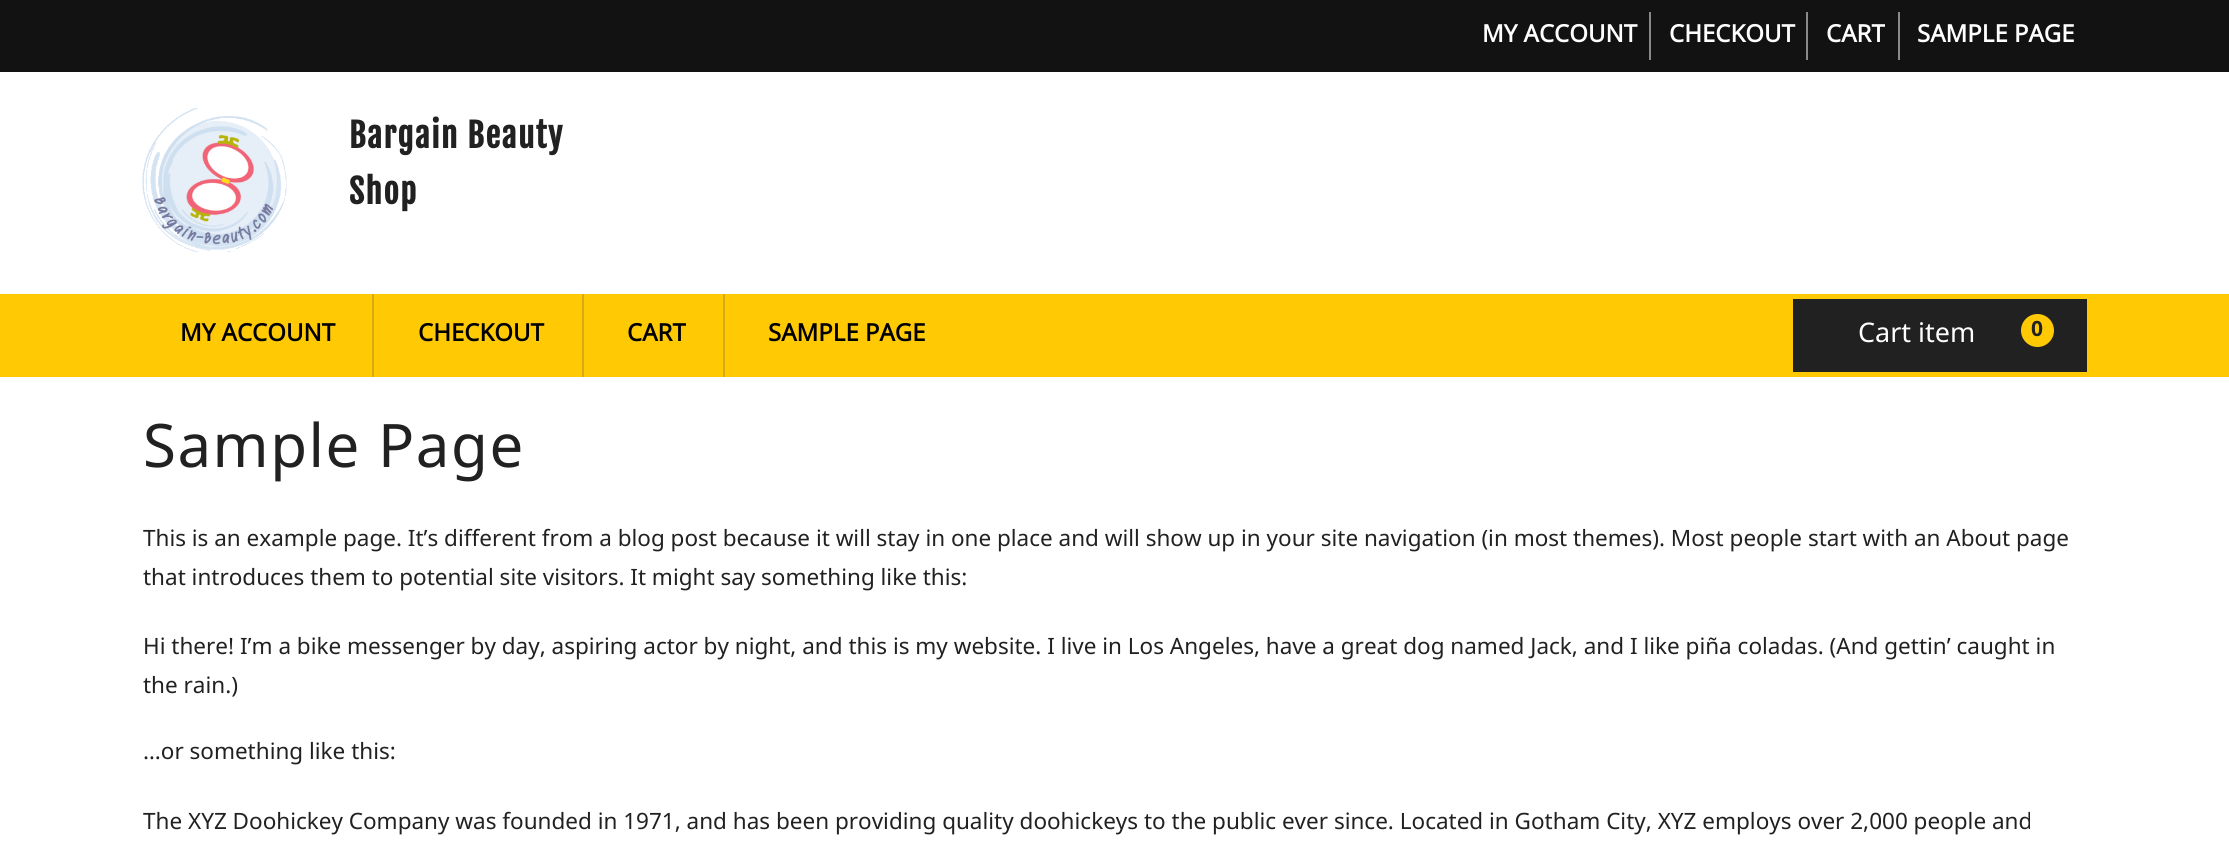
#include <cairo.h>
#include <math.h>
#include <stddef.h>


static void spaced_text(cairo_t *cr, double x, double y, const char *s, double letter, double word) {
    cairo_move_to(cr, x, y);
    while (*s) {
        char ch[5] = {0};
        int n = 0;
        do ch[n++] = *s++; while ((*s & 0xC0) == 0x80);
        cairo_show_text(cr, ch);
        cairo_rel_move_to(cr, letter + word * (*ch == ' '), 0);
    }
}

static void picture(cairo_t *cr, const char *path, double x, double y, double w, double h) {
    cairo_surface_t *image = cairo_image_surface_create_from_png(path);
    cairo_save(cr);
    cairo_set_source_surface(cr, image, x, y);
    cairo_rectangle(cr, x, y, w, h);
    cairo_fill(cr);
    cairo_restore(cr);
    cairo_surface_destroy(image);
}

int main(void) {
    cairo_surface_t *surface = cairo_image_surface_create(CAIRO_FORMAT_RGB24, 2229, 862);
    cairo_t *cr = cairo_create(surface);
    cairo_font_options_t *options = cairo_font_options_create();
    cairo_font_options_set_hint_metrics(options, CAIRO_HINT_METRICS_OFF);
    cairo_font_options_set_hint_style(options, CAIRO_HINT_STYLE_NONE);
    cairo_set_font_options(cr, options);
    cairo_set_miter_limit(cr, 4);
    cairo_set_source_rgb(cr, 1, 1, 1);
    cairo_paint(cr);
    cairo_set_source_rgb(cr, 0.071, 0.071, 0.071);
    cairo_rectangle(cr, 0, 0, 2229, 72);
    cairo_fill(cr);
    cairo_set_source_rgb(cr, 0.537, 0.537, 0.537);
    cairo_rectangle(cr, 1649, 12, 2, 48);
    cairo_fill(cr);
    cairo_select_font_face(cr, "Noto Sans Thai", CAIRO_FONT_SLANT_NORMAL, CAIRO_FONT_WEIGHT_BOLD);
    cairo_set_font_size(cr, 24);
    cairo_set_source_rgb(cr, 1, 1, 1);
    cairo_move_to(cr, 1482, 42);
    cairo_show_text(cr, "MY ACCOUNT");
    cairo_set_source_rgb(cr, 0.537, 0.537, 0.537);
    cairo_rectangle(cr, 1806, 12, 2, 48);
    cairo_fill(cr);
    cairo_set_source_rgb(cr, 1, 1, 1);
    cairo_move_to(cr, 1669, 42);
    cairo_show_text(cr, "CHECKOUT");
    cairo_set_source_rgb(cr, 0.537, 0.537, 0.537);
    cairo_rectangle(cr, 1898, 12, 2, 48);
    cairo_fill(cr);
    cairo_set_source_rgb(cr, 1, 1, 1);
    cairo_move_to(cr, 1826, 42);
    cairo_show_text(cr, "CART");
    cairo_move_to(cr, 1917, 42);
    cairo_show_text(cr, "SAMPLE PAGE");
    picture(cr, "img1.png", 142, 108, 145, 144);
    cairo_select_font_face(cr, "Fjalla One", CAIRO_FONT_SLANT_NORMAL, CAIRO_FONT_WEIGHT_BOLD);
    cairo_set_font_size(cr, 33);
    cairo_set_source_rgb(cr, 0.129, 0.129, 0.129);
    spaced_text(cr, 349, 148, "Bargain Beauty", 1.5, 0);
    spaced_text(cr, 349, 204, "Shop", 1.5, 0);
    cairo_set_source_rgb(cr, 1, 0.792, 0.016);
    cairo_rectangle(cr, 0, 294, 2229, 83);
    cairo_fill(cr);
    cairo_set_source_rgb(cr, 0.839, 0.675, 0.051);
    cairo_rectangle(cr, 372, 294, 2, 83);
    cairo_fill(cr);
    cairo_select_font_face(cr, "Noto Sans Thai", CAIRO_FONT_SLANT_NORMAL, CAIRO_FONT_WEIGHT_BOLD);
    cairo_set_font_size(cr, 24);
    cairo_set_source_rgb(cr, 0, 0, 0);
    cairo_move_to(cr, 180, 341);
    cairo_show_text(cr, "MY ACCOUNT");
    cairo_set_source_rgb(cr, 0.839, 0.675, 0.051);
    cairo_rectangle(cr, 582, 294, 2, 83);
    cairo_fill(cr);
    cairo_set_source_rgb(cr, 0, 0, 0);
    cairo_move_to(cr, 418, 341);
    cairo_show_text(cr, "CHECKOUT");
    cairo_set_source_rgb(cr, 0.839, 0.675, 0.051);
    cairo_rectangle(cr, 723, 294, 2, 83);
    cairo_fill(cr);
    cairo_set_source_rgb(cr, 0, 0, 0);
    cairo_move_to(cr, 627, 341);
    cairo_show_text(cr, "CART");
    cairo_move_to(cr, 768, 341);
    cairo_show_text(cr, "SAMPLE PAGE");
    cairo_set_source_rgb(cr, 0.129, 0.129, 0.129);
    cairo_rectangle(cr, 1793, 299, 294, 73);
    cairo_fill(cr);
    cairo_select_font_face(cr, "Noto Sans", CAIRO_FONT_SLANT_NORMAL, CAIRO_FONT_WEIGHT_NORMAL);
    cairo_set_font_size(cr, 27);
    cairo_set_source_rgb(cr, 1, 1, 1);
    cairo_move_to(cr, 1858, 342);
    cairo_show_text(cr, "Cart item");
    cairo_set_source_rgb(cr, 1, 0.792, 0.016);
    cairo_new_path(cr);
    cairo_arc(cr, 2037.5, 330.5, 16.5, 0, 2 * M_PI);
    cairo_fill(cr);
    cairo_select_font_face(cr, "Noto Sans", CAIRO_FONT_SLANT_NORMAL, CAIRO_FONT_WEIGHT_BOLD);
    cairo_set_font_size(cr, 21);
    cairo_set_source_rgb(cr, 0.129, 0.129, 0.129);
    cairo_move_to(cr, 2031, 336);
    cairo_show_text(cr, "0");
    cairo_select_font_face(cr, "Noto Sans Thai", CAIRO_FONT_SLANT_NORMAL, CAIRO_FONT_WEIGHT_NORMAL);
    cairo_set_font_size(cr, 60);
    spaced_text(cr, 143, 467, "Sample Page", 1.5, 0);
    cairo_select_font_face(cr, "Noto Sans", CAIRO_FONT_SLANT_NORMAL, CAIRO_FONT_WEIGHT_NORMAL);
    cairo_set_font_size(cr, 22.5);
    cairo_move_to(cr, 143, 546);
    cairo_show_text(cr, "This is an example page. It’s different from a blog post because it will stay in one place and will show up in your site navigation (in most themes). Most people start with an About page");
    cairo_move_to(cr, 143, 585);
    cairo_show_text(cr, "that introduces them to potential site visitors. It might say something like this:");
    cairo_select_font_face(cr, "Noto Sans Thai", CAIRO_FONT_SLANT_NORMAL, CAIRO_FONT_WEIGHT_NORMAL);
    cairo_move_to(cr, 143, 654);
    cairo_show_text(cr, "Hi there! I’m a bike messenger by day, aspiring actor by night, and this is my website. I live in Los Angeles, have a great dog named Jack, and I like piña coladas. (And gettin’ caught in");
    cairo_move_to(cr, 143, 693);
    cairo_show_text(cr, "the rain.)");
    cairo_select_font_face(cr, "Noto Sans", CAIRO_FONT_SLANT_NORMAL, CAIRO_FONT_WEIGHT_NORMAL);
    cairo_move_to(cr, 143, 759);
    cairo_show_text(cr, "…or something like this:");
    cairo_select_font_face(cr, "Noto Sans Thai", CAIRO_FONT_SLANT_NORMAL, CAIRO_FONT_WEIGHT_NORMAL);
    cairo_move_to(cr, 143, 829);
    cairo_show_text(cr, "The XYZ Doohickey Company was founded in 1971, and has been providing quality doohickeys to the public ever since. Located in Gotham City, XYZ employs over 2,000 people and");
    cairo_surface_write_to_png(surface, "page.png");
    cairo_font_options_destroy(options);
    cairo_destroy(cr);
    cairo_surface_destroy(surface);
    return 0;
}
